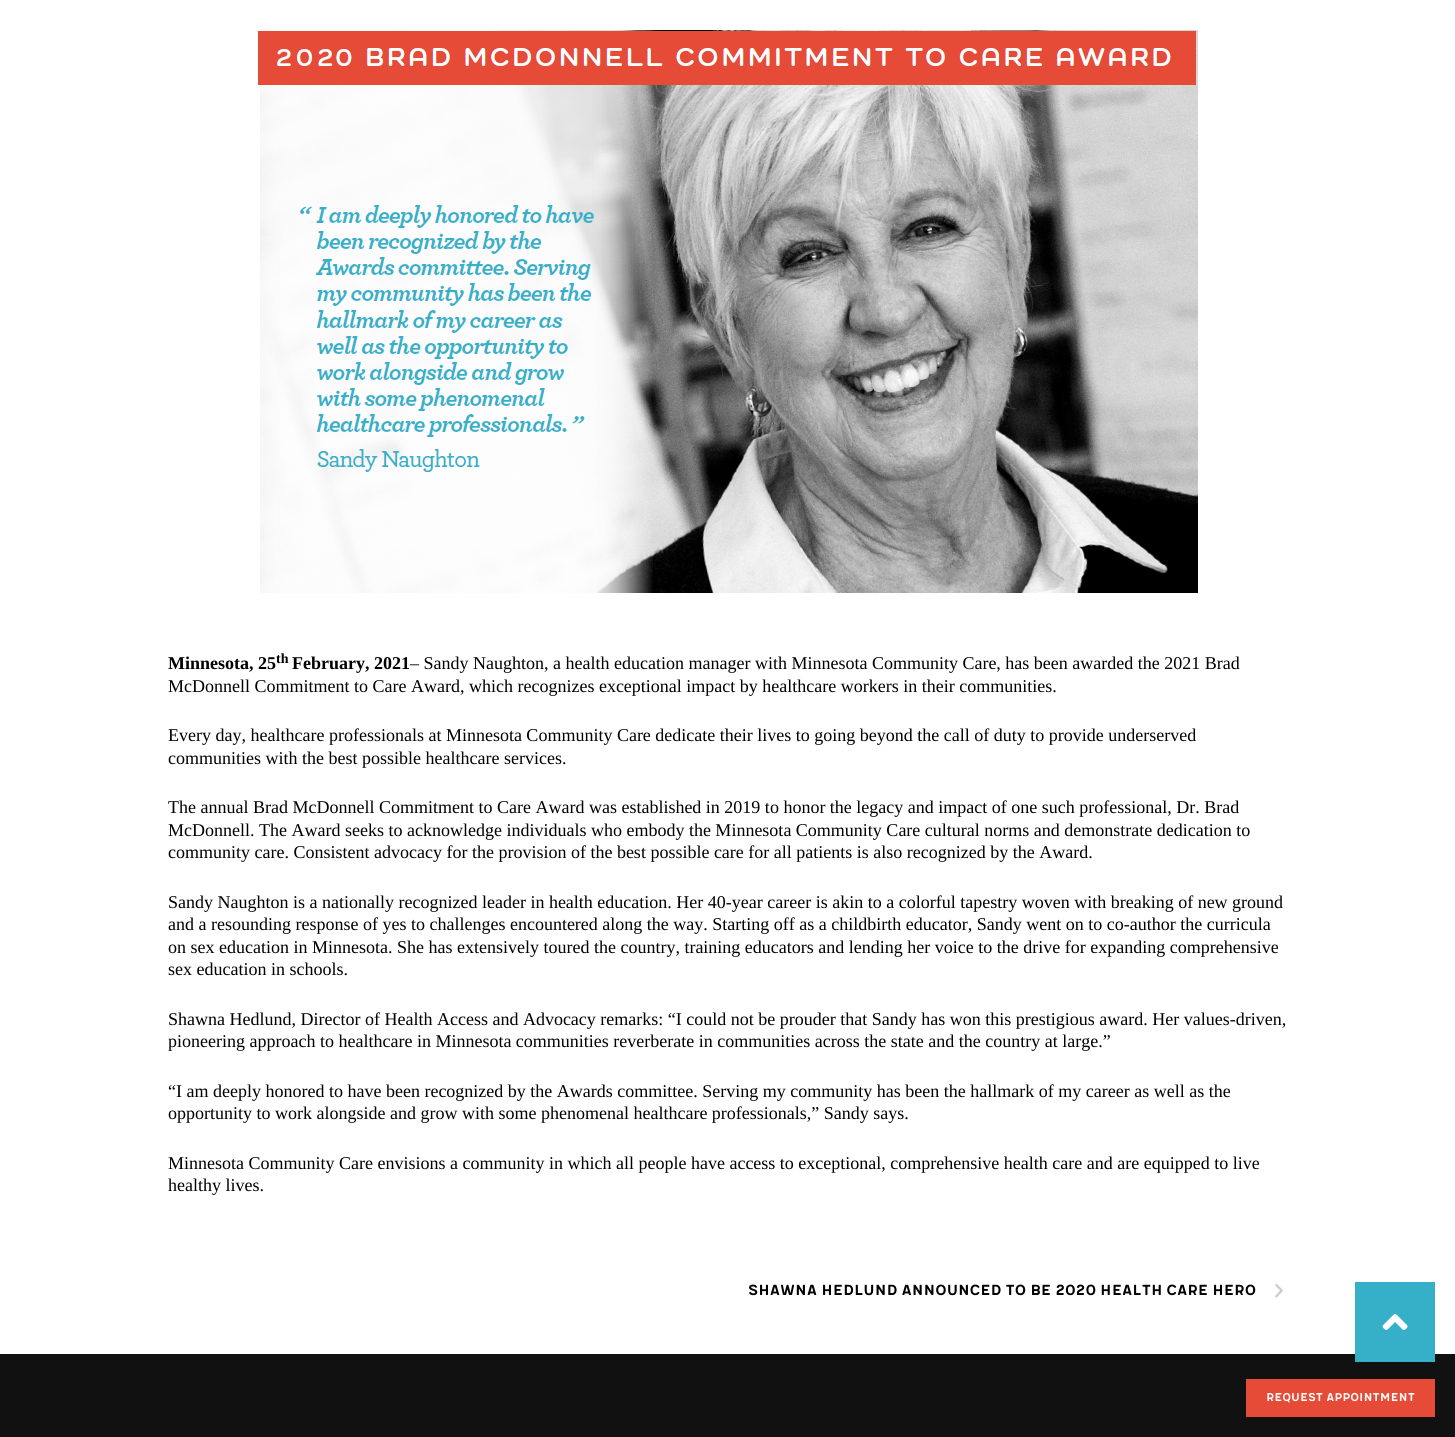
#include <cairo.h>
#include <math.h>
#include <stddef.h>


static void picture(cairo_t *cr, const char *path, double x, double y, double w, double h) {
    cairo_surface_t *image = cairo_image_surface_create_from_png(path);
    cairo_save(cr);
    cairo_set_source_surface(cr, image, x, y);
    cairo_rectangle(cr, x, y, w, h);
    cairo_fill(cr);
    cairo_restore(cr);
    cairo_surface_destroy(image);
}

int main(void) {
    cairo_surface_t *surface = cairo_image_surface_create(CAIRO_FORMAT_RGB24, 1455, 1437);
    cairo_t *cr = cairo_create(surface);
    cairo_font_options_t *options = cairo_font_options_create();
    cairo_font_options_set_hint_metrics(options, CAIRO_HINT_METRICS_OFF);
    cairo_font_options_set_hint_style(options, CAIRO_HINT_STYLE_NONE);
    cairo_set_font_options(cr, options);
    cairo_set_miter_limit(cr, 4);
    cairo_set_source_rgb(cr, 1, 1, 1);
    cairo_paint(cr);
    picture(cr, "img1.png", 258, 30, 940, 563);
    cairo_select_font_face(cr, "Liberation Serif", CAIRO_FONT_SLANT_NORMAL, CAIRO_FONT_WEIGHT_BOLD);
    cairo_set_font_size(cr, 18);
    cairo_set_source_rgb(cr, 0, 0, 0);
    cairo_move_to(cr, 168, 669);
    cairo_show_text(cr, "Minnesota, 25");
    cairo_set_font_size(cr, 14);
    cairo_move_to(cr, 276, 663);
    cairo_show_text(cr, "th");
    cairo_set_font_size(cr, 18);
    cairo_move_to(cr, 292, 669);
    cairo_show_text(cr, "February, 2021");
    cairo_select_font_face(cr, "Liberation Serif", CAIRO_FONT_SLANT_NORMAL, CAIRO_FONT_WEIGHT_NORMAL);
    cairo_move_to(cr, 410, 669);
    cairo_show_text(cr, "– Sandy Naughton, a health education manager with Minnesota Community Care, has been awarded the 2021 Brad");
    cairo_move_to(cr, 168, 692);
    cairo_show_text(cr, "McDonnell Commitment to Care Award, which recognizes exceptional impact by healthcare workers in their communities.");
    cairo_move_to(cr, 168, 741);
    cairo_show_text(cr, "Every day, healthcare professionals at Minnesota Community Care dedicate their lives to going beyond the call of duty to provide underserved");
    cairo_move_to(cr, 168, 764);
    cairo_show_text(cr, "communities with the best possible healthcare services.");
    cairo_move_to(cr, 168, 813);
    cairo_show_text(cr, "The annual Brad McDonnell Commitment to Care Award was established in 2019 to honor the legacy and impact of one such professional, Dr. Brad");
    cairo_move_to(cr, 168, 836);
    cairo_show_text(cr, "McDonnell. The Award seeks to acknowledge individuals who embody the Minnesota Community Care cultural norms and demonstrate dedication to");
    cairo_move_to(cr, 168, 858);
    cairo_show_text(cr, "community care. Consistent advocacy for the provision of the best possible care for all patients is also recognized by the Award.");
    cairo_move_to(cr, 168, 908);
    cairo_show_text(cr, "Sandy Naughton is a nationally recognized leader in health education. Her 40-year career is akin to a colorful tapestry woven with breaking of new ground");
    cairo_move_to(cr, 168, 930);
    cairo_show_text(cr, "and a resounding response of yes to challenges encountered along the way. Starting off as a childbirth educator, Sandy went on to co-author the curricula");
    cairo_move_to(cr, 168, 953);
    cairo_show_text(cr, "on sex education in Minnesota. She has extensively toured the country, training educators and lending her voice to the drive for expanding comprehensive");
    cairo_move_to(cr, 168, 975);
    cairo_show_text(cr, "sex education in schools.");
    cairo_move_to(cr, 168, 1025);
    cairo_show_text(cr, "Shawna Hedlund, Director of Health Access and Advocacy remarks: “I could not be prouder that Sandy has won this prestigious award. Her values-driven,");
    cairo_move_to(cr, 168, 1047);
    cairo_show_text(cr, "pioneering approach to healthcare in Minnesota communities reverberate in communities across the state and the country at large.”");
    cairo_move_to(cr, 168, 1097);
    cairo_show_text(cr, "“I am deeply honored to have been recognized by the Awards committee. Serving my community has been the hallmark of my career as well as the");
    cairo_move_to(cr, 168, 1119);
    cairo_show_text(cr, "opportunity to work alongside and grow with some phenomenal healthcare professionals,” Sandy says.");
    cairo_move_to(cr, 168, 1169);
    cairo_show_text(cr, "Minnesota Community Care envisions a community in which all people have access to exceptional, comprehensive health care and are equipped to live");
    cairo_move_to(cr, 168, 1191);
    cairo_show_text(cr, "healthy lives.");
    cairo_select_font_face(cr, "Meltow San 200", CAIRO_FONT_SLANT_NORMAL, CAIRO_FONT_WEIGHT_NORMAL);
    cairo_move_to(cr, 748, 1295);
    cairo_show_text(cr, "Shawna Hedlund announced to be 2020 Health Care Hero");
    picture(cr, "img2.png", 1275, 1284, 8, 14);
    cairo_set_source_rgb(cr, 0.067, 0.067, 0.067);
    cairo_rectangle(cr, 0, 1354, 1455, 83);
    cairo_fill(cr);
    cairo_set_source_rgb(cr, 0.212, 0.686, 0.784);
    cairo_rectangle(cr, 1355, 1282, 80, 80);
    cairo_fill(cr);
    picture(cr, "img3.png", 1382, 1314, 26, 16);
    cairo_set_source_rgb(cr, 0.902, 0.294, 0.216);
    cairo_rectangle(cr, 1246, 1379, 189, 38);
    cairo_fill(cr);
    cairo_set_font_size(cr, 14);
    cairo_set_source_rgb(cr, 1, 1, 1);
    cairo_move_to(cr, 1266, 1401);
    cairo_show_text(cr, "Request Appointment");
    cairo_surface_write_to_png(surface, "page.png");
    cairo_font_options_destroy(options);
    cairo_destroy(cr);
    cairo_surface_destroy(surface);
    return 0;
}
